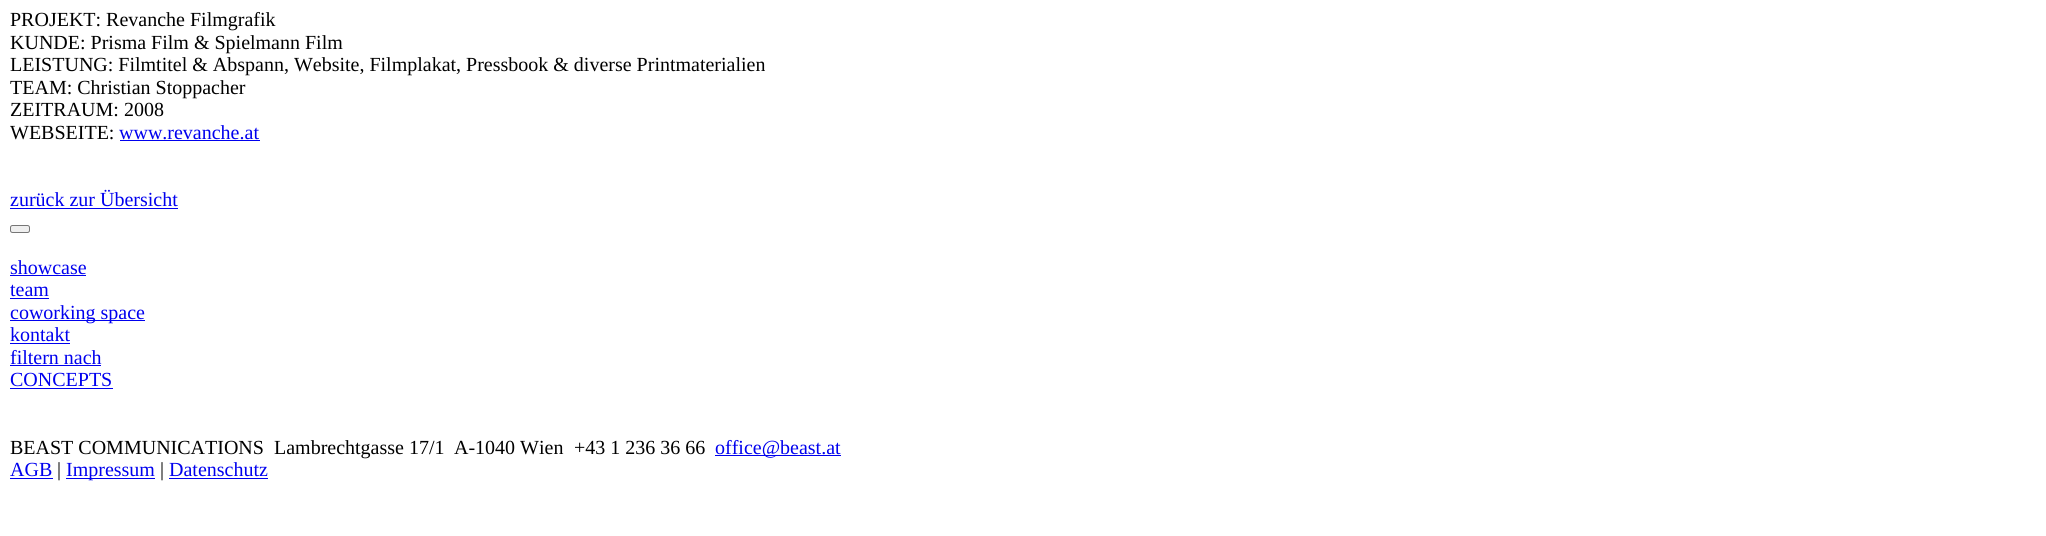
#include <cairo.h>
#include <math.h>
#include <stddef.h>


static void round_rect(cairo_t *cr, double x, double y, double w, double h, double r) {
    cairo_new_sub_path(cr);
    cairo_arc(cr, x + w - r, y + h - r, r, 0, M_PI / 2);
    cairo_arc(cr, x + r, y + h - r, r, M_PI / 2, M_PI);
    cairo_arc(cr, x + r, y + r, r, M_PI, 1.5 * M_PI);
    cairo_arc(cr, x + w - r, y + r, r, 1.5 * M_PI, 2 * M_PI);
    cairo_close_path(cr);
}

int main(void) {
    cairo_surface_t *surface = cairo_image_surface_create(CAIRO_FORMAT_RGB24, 2046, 536);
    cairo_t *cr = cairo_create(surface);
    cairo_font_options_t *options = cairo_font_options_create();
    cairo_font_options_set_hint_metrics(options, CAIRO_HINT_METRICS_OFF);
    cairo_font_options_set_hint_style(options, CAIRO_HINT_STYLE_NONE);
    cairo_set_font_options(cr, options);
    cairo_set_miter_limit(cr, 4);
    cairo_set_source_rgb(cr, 1, 1, 1);
    cairo_paint(cr);
    cairo_select_font_face(cr, "Liberation Serif", CAIRO_FONT_SLANT_NORMAL, CAIRO_FONT_WEIGHT_NORMAL);
    cairo_set_font_size(cr, 20);
    cairo_set_source_rgb(cr, 0, 0, 0);
    cairo_move_to(cr, 10, 26);
    cairo_show_text(cr, "PROJEKT: Revanche Filmgrafik");
    cairo_move_to(cr, 10, 49);
    cairo_show_text(cr, "KUNDE: Prisma Film & Spielmann Film");
    cairo_move_to(cr, 10, 71);
    cairo_show_text(cr, "LEISTUNG: Filmtitel & Abspann, Website, Filmplakat, Pressbook & diverse Printmaterialien");
    cairo_move_to(cr, 10, 94);
    cairo_show_text(cr, "TEAM: Christian Stoppacher");
    cairo_move_to(cr, 10, 116);
    cairo_show_text(cr, "ZEITRAUM: 2008");
    cairo_move_to(cr, 10, 139);
    cairo_show_text(cr, "WEBSEITE:");
    cairo_set_source_rgb(cr, 0, 0, 0.933);
    cairo_move_to(cr, 119, 139);
    cairo_show_text(cr, "www.revanche.at");
    cairo_rectangle(cr, 120, 140, 140, 1);
    cairo_fill(cr);
    cairo_move_to(cr, 10, 206);
    cairo_show_text(cr, "zurück zur Übersicht");
    cairo_rectangle(cr, 10, 208, 168, 1);
    cairo_fill(cr);
    cairo_set_source_rgb(cr, 0.937, 0.937, 0.937);
    round_rect(cr, 10.5, 225.5, 19, 7, 2);
    cairo_fill_preserve(cr);
    cairo_set_source_rgb(cr, 0.463, 0.463, 0.463);
    cairo_set_line_width(cr, 1);
    cairo_stroke(cr);
    cairo_set_source_rgb(cr, 0, 0, 0.933);
    cairo_move_to(cr, 10, 274);
    cairo_show_text(cr, "showcase");
    cairo_rectangle(cr, 10, 275, 76, 1);
    cairo_fill(cr);
    cairo_move_to(cr, 10, 296);
    cairo_show_text(cr, "team");
    cairo_rectangle(cr, 10, 298, 39, 1);
    cairo_fill(cr);
    cairo_rectangle(cr, 10, 320, 135, 1);
    cairo_fill(cr);
    cairo_move_to(cr, 10, 319);
    cairo_show_text(cr, "coworking space");
    cairo_move_to(cr, 10, 341);
    cairo_show_text(cr, "kontakt");
    cairo_rectangle(cr, 10, 343, 60, 1);
    cairo_fill(cr);
    cairo_move_to(cr, 10, 364);
    cairo_show_text(cr, "filtern nach");
    cairo_rectangle(cr, 10, 365, 91, 1);
    cairo_fill(cr);
    cairo_move_to(cr, 10, 386);
    cairo_show_text(cr, "CONCEPTS");
    cairo_rectangle(cr, 10, 388, 103, 1);
    cairo_fill(cr);
    cairo_set_source_rgb(cr, 0, 0, 0);
    cairo_move_to(cr, 10, 454);
    cairo_show_text(cr, "BEAST COMMUNICATIONS");
    cairo_move_to(cr, 274, 454);
    cairo_show_text(cr, "Lambrechtgasse 17/1");
    cairo_move_to(cr, 454, 454);
    cairo_show_text(cr, "A-1040 Wien");
    cairo_move_to(cr, 574, 454);
    cairo_show_text(cr, "+43 1 236 36 66");
    cairo_set_source_rgb(cr, 0, 0, 0.933);
    cairo_rectangle(cr, 715, 455, 126, 1);
    cairo_fill(cr);
    cairo_move_to(cr, 715, 454);
    cairo_show_text(cr, "office@beast.at");
    cairo_move_to(cr, 10, 476);
    cairo_show_text(cr, "AGB");
    cairo_rectangle(cr, 10, 478, 43, 1);
    cairo_fill(cr);
    cairo_set_source_rgb(cr, 0, 0, 0);
    cairo_move_to(cr, 57, 476);
    cairo_show_text(cr, "|");
    cairo_set_source_rgb(cr, 0, 0, 0.933);
    cairo_rectangle(cr, 66, 478, 89, 1);
    cairo_fill(cr);
    cairo_move_to(cr, 66, 476);
    cairo_show_text(cr, "Impressum");
    cairo_set_source_rgb(cr, 0, 0, 0);
    cairo_move_to(cr, 160, 476);
    cairo_show_text(cr, "|");
    cairo_set_source_rgb(cr, 0, 0, 0.933);
    cairo_move_to(cr, 169, 476);
    cairo_show_text(cr, "Datenschutz");
    cairo_rectangle(cr, 169, 478, 99, 1);
    cairo_fill(cr);
    cairo_surface_write_to_png(surface, "page.png");
    cairo_font_options_destroy(options);
    cairo_destroy(cr);
    cairo_surface_destroy(surface);
    return 0;
}
